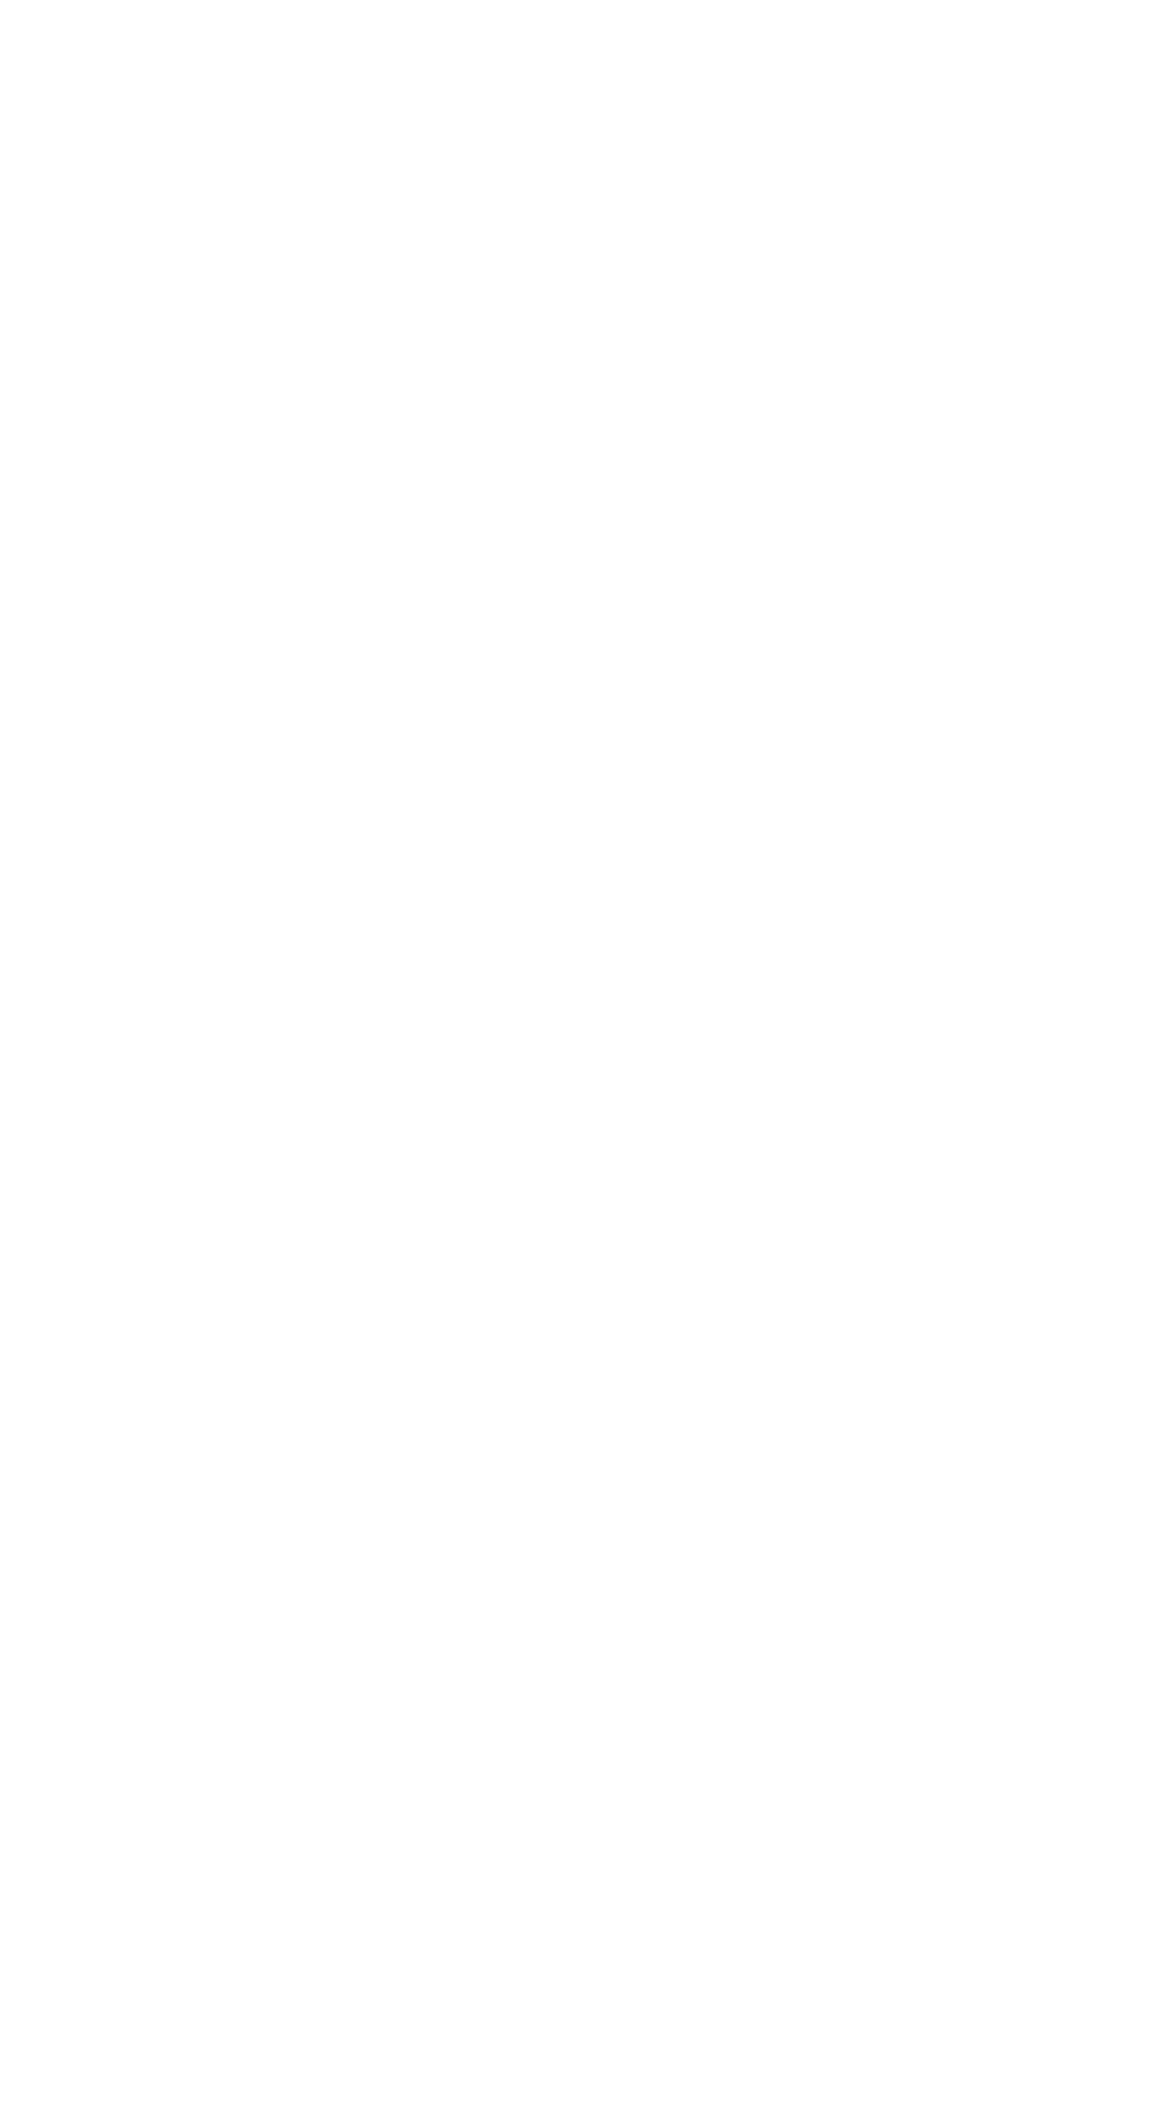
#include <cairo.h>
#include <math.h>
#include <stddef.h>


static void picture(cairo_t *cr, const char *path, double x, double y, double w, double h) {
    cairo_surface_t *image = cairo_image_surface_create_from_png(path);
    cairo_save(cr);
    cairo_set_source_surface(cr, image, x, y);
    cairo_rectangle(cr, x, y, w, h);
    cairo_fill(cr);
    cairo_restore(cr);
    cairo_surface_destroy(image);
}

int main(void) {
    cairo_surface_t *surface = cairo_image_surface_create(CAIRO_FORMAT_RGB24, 1156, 2126);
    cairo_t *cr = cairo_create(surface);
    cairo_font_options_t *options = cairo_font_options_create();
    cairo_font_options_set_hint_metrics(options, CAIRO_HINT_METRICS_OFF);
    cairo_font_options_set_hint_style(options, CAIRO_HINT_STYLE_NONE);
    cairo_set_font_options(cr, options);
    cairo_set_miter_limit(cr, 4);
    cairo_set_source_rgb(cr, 1, 1, 1);
    cairo_paint(cr);
    picture(cr, "img1.png", 19, 12, 54, 56);
    picture(cr, "img2.png", 96, 25, 138, 37);
    picture(cr, "img3.png", 393, 174, 371, 371);
    picture(cr, "img4.png", 212, 662, 279, 267);
    picture(cr, "img5.png", 662, 662, 279, 266);
    cairo_surface_write_to_png(surface, "page.png");
    cairo_font_options_destroy(options);
    cairo_destroy(cr);
    cairo_surface_destroy(surface);
    return 0;
}
